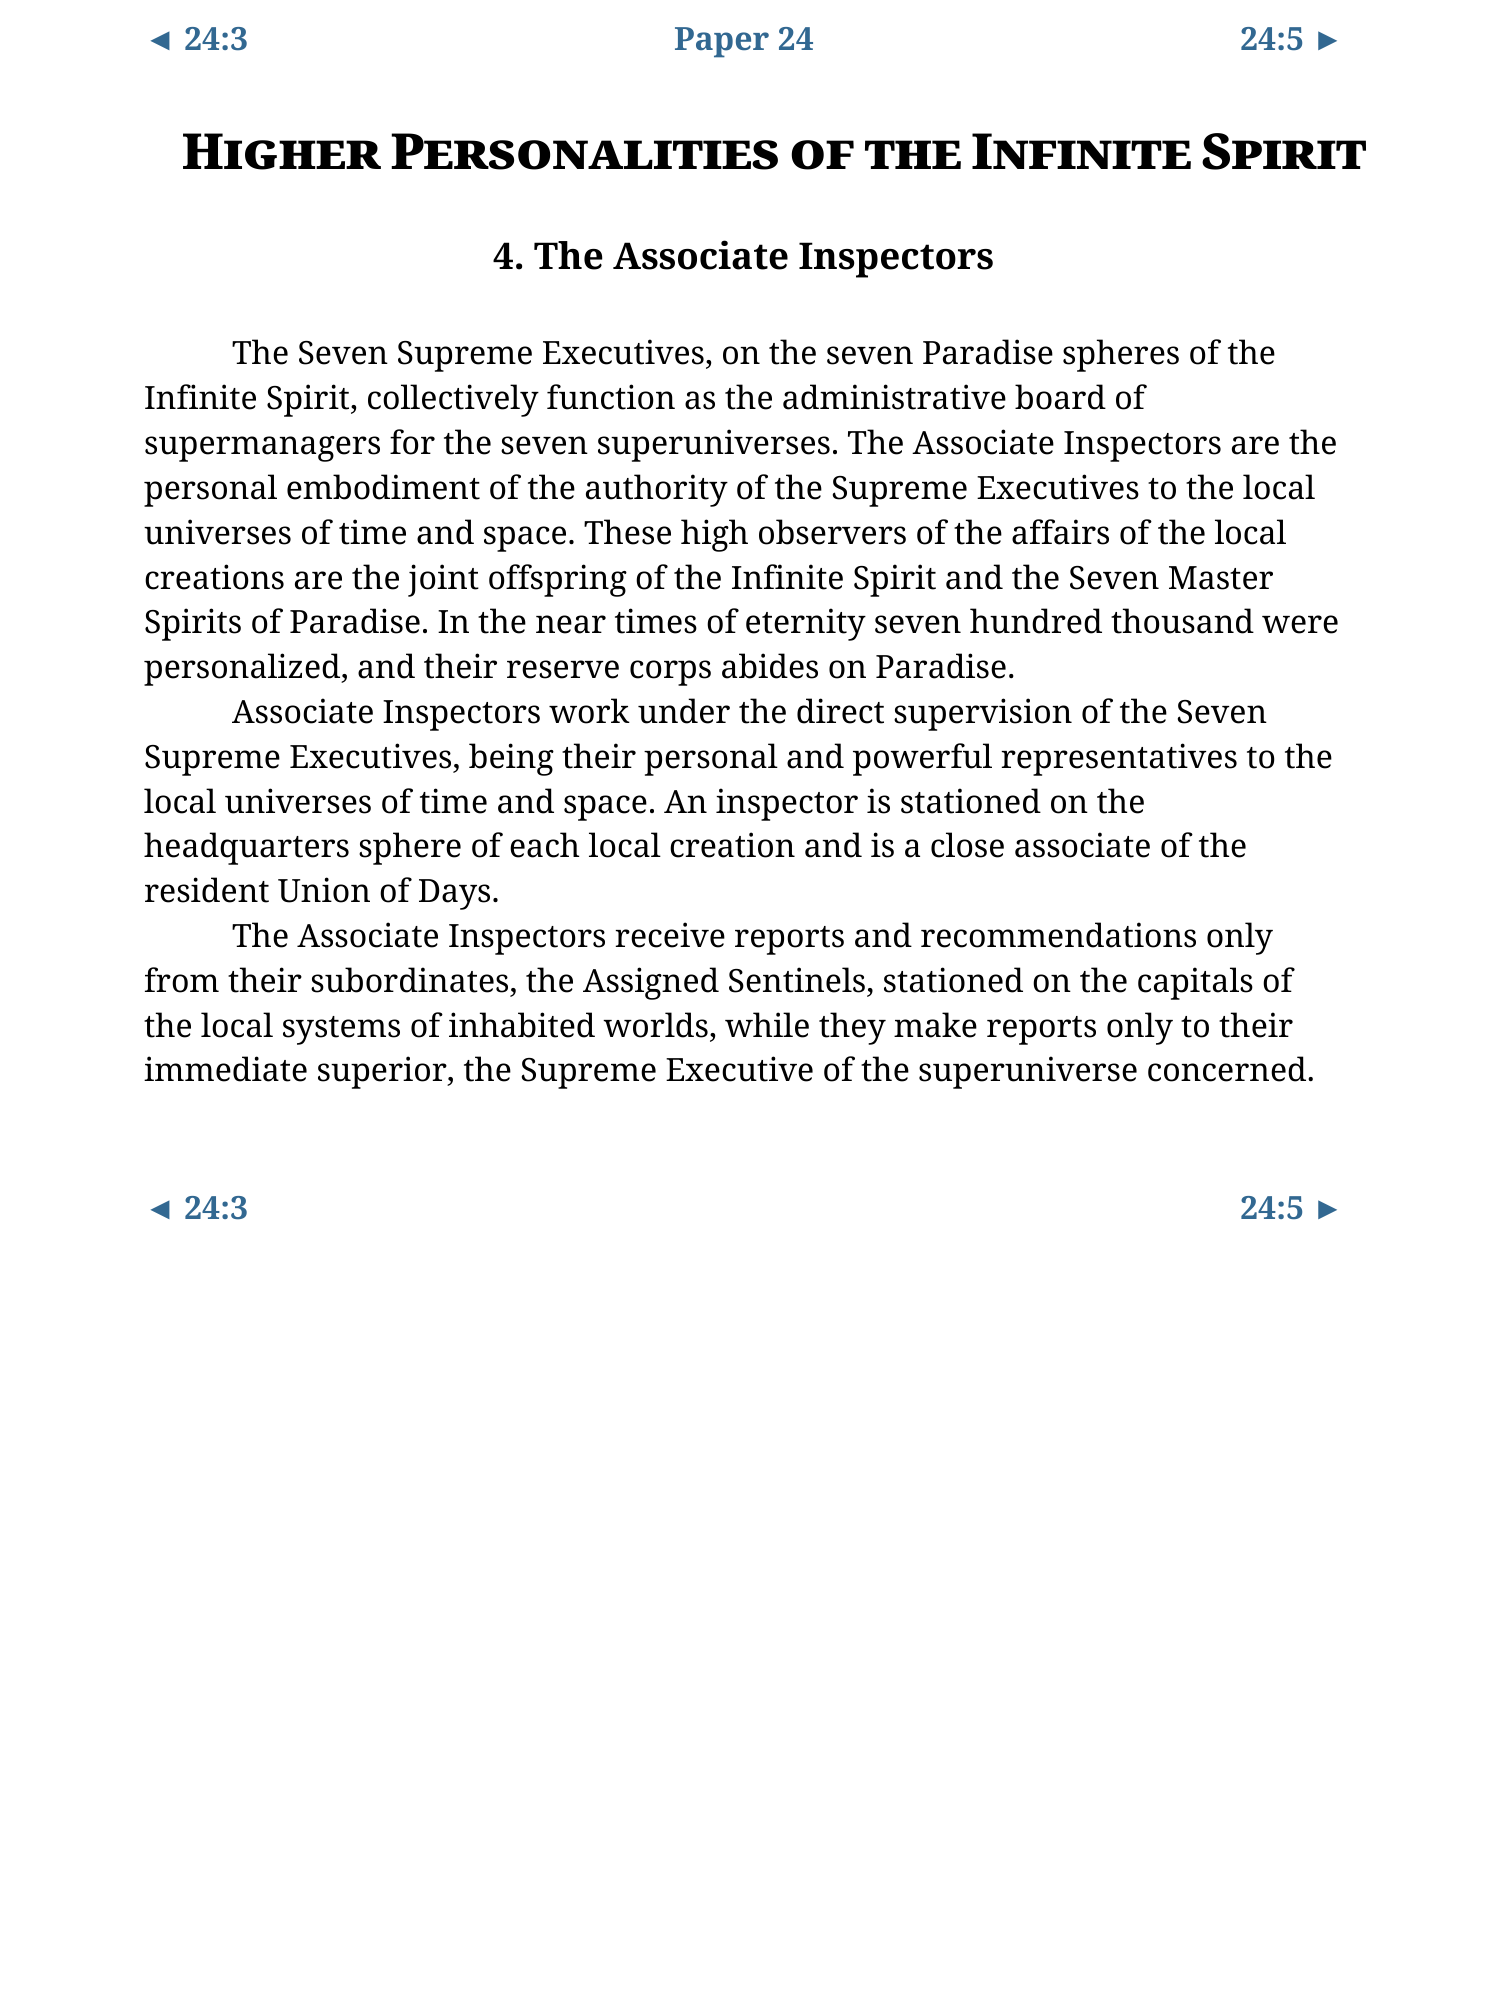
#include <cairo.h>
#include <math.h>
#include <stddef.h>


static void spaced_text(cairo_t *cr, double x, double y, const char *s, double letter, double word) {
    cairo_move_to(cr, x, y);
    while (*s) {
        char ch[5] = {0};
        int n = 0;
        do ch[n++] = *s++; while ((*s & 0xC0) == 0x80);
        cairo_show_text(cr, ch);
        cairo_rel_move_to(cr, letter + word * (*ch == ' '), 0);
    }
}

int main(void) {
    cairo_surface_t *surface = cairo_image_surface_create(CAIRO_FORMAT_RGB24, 1488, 2014);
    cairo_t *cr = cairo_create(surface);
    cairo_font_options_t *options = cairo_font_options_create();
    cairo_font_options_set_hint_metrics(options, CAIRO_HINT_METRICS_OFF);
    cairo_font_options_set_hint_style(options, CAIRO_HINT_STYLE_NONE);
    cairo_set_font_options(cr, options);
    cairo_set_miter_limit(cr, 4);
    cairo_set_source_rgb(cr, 1, 1, 1);
    cairo_paint(cr);
    cairo_select_font_face(cr, "Liberation Serif", CAIRO_FONT_SLANT_NORMAL, CAIRO_FONT_WEIGHT_BOLD);
    cairo_set_font_size(cr, 32);
    cairo_set_source_rgb(cr, 0.196, 0.408, 0.569);
    cairo_move_to(cr, 144, 50);
    cairo_show_text(cr, "◄");
    cairo_select_font_face(cr, "Noto Serif", CAIRO_FONT_SLANT_NORMAL, CAIRO_FONT_WEIGHT_BOLD);
    cairo_move_to(cr, 184, 50);
    cairo_show_text(cr, "24:3");
    cairo_move_to(cr, 674, 50);
    cairo_show_text(cr, "Paper 24");
    cairo_move_to(cr, 1240, 50);
    cairo_show_text(cr, "24:5");
    cairo_select_font_face(cr, "Liberation Serif", CAIRO_FONT_SLANT_NORMAL, CAIRO_FONT_WEIGHT_BOLD);
    cairo_move_to(cr, 1312, 50);
    cairo_show_text(cr, "►");
    cairo_select_font_face(cr, "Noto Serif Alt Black", CAIRO_FONT_SLANT_NORMAL, CAIRO_FONT_WEIGHT_NORMAL);
    cairo_set_font_size(cr, 49.6);
    cairo_set_source_rgb(cr, 0, 0, 0);
    spaced_text(cr, 182, 169, "Higher Personalities of the Infinite Spirit", 0, -3);
    cairo_select_font_face(cr, "Noto Serif", CAIRO_FONT_SLANT_NORMAL, CAIRO_FONT_WEIGHT_BOLD);
    cairo_set_font_size(cr, 36.75);
    cairo_move_to(cr, 493, 269);
    cairo_show_text(cr, "4. The Associate Inspectors");
    cairo_select_font_face(cr, "Noto Serif", CAIRO_FONT_SLANT_NORMAL, CAIRO_FONT_WEIGHT_NORMAL);
    cairo_set_font_size(cr, 32);
    cairo_move_to(cr, 232, 364);
    cairo_show_text(cr, "The Seven Supreme Executives, on the seven Paradise spheres of the");
    cairo_move_to(cr, 144, 409);
    cairo_show_text(cr, "Infinite Spirit, collectively function as the administrative board of");
    cairo_move_to(cr, 144, 454);
    cairo_show_text(cr, "supermanagers for the seven superuniverses. The Associate Inspectors are the");
    cairo_move_to(cr, 144, 499);
    cairo_show_text(cr, "personal embodiment of the authority of the Supreme Executives to the local");
    cairo_move_to(cr, 144, 544);
    cairo_show_text(cr, "universes of time and space. These high observers of the affairs of the local");
    cairo_move_to(cr, 144, 589);
    cairo_show_text(cr, "creations are the joint offspring of the Infinite Spirit and the Seven Master");
    cairo_move_to(cr, 144, 633);
    cairo_show_text(cr, "Spirits of Paradise. In the near times of eternity seven hundred thousand were");
    cairo_move_to(cr, 144, 678);
    cairo_show_text(cr, "personalized, and their reserve corps abides on Paradise.");
    cairo_move_to(cr, 232, 723);
    cairo_show_text(cr, "Associate Inspectors work under the direct supervision of the Seven");
    cairo_move_to(cr, 144, 768);
    cairo_show_text(cr, "Supreme Executives, being their personal and powerful representatives to the");
    cairo_move_to(cr, 144, 813);
    cairo_show_text(cr, "local universes of time and space. An inspector is stationed on the");
    cairo_move_to(cr, 144, 857);
    cairo_show_text(cr, "headquarters sphere of each local creation and is a close associate of the");
    cairo_move_to(cr, 144, 902);
    cairo_show_text(cr, "resident Union of Days.");
    cairo_move_to(cr, 232, 947);
    cairo_show_text(cr, "The Associate Inspectors receive reports and recommendations only");
    cairo_move_to(cr, 144, 992);
    cairo_show_text(cr, "from their subordinates, the Assigned Sentinels, stationed on the capitals of");
    cairo_move_to(cr, 144, 1037);
    cairo_show_text(cr, "the local systems of inhabited worlds, while they make reports only to their");
    cairo_move_to(cr, 144, 1081);
    cairo_show_text(cr, "immediate superior, the Supreme Executive of the superuniverse concerned.");
    cairo_select_font_face(cr, "Liberation Serif", CAIRO_FONT_SLANT_NORMAL, CAIRO_FONT_WEIGHT_BOLD);
    cairo_set_source_rgb(cr, 0.196, 0.408, 0.569);
    cairo_move_to(cr, 144, 1219);
    cairo_show_text(cr, "◄");
    cairo_select_font_face(cr, "Noto Serif", CAIRO_FONT_SLANT_NORMAL, CAIRO_FONT_WEIGHT_BOLD);
    cairo_move_to(cr, 184, 1219);
    cairo_show_text(cr, "24:3");
    cairo_move_to(cr, 1240, 1219);
    cairo_show_text(cr, "24:5");
    cairo_select_font_face(cr, "Liberation Serif", CAIRO_FONT_SLANT_NORMAL, CAIRO_FONT_WEIGHT_BOLD);
    cairo_move_to(cr, 1312, 1219);
    cairo_show_text(cr, "►");
    cairo_surface_write_to_png(surface, "page.png");
    cairo_font_options_destroy(options);
    cairo_destroy(cr);
    cairo_surface_destroy(surface);
    return 0;
}
